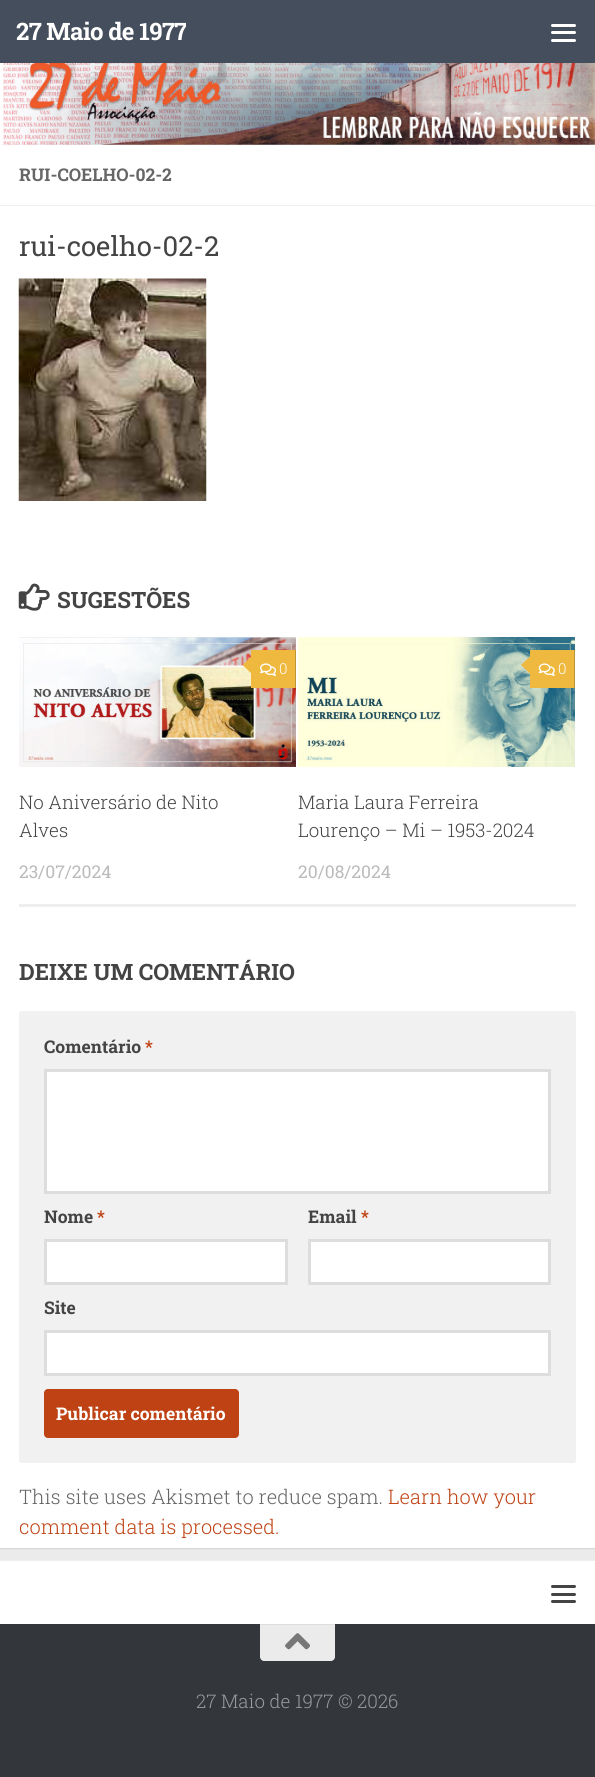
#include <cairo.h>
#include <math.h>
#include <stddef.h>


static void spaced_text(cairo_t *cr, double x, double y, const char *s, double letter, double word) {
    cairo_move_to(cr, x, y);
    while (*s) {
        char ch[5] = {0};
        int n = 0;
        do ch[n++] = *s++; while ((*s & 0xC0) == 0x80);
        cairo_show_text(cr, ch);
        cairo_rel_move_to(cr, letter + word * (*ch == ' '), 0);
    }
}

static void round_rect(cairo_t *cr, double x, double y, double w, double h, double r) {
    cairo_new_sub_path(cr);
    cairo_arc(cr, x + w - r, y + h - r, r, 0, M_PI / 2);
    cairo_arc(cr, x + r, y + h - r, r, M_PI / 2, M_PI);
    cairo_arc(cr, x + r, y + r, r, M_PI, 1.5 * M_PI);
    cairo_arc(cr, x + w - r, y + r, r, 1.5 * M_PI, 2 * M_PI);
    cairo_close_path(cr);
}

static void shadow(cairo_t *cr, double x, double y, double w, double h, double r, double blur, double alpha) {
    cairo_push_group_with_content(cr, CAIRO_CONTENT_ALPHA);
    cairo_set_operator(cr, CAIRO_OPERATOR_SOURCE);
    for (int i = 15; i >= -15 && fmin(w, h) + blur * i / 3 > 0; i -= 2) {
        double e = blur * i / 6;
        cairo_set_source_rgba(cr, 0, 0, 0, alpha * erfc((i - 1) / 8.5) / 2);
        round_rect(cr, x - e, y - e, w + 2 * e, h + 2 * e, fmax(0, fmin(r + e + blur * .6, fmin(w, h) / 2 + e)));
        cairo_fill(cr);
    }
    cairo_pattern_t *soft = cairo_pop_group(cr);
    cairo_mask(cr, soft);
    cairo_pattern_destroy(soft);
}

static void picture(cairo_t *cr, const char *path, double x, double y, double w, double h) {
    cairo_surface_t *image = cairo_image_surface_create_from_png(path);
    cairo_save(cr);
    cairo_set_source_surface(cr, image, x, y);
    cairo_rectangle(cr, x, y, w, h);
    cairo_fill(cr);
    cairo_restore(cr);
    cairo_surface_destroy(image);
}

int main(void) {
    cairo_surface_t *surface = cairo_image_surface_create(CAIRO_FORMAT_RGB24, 595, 1777);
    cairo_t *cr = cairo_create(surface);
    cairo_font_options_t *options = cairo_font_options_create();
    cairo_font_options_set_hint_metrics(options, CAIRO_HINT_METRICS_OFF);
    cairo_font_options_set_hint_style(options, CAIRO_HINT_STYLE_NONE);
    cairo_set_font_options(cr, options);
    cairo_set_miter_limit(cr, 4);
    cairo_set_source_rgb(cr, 0.918, 0.918, 0.918);
    cairo_paint(cr);
    cairo_set_source_rgb(cr, 0.271, 0.306, 0.361);
    cairo_rectangle(cr, 0, 0, 595, 63);
    cairo_fill(cr);
    cairo_save(cr);
    cairo_rectangle(cr, 16, 0, 170, 63);
    cairo_clip(cr);
    cairo_select_font_face(cr, "Roboto Slab", CAIRO_FONT_SLANT_NORMAL, CAIRO_FONT_WEIGHT_BOLD);
    cairo_set_font_size(cr, 24);
    cairo_set_source_rgb(cr, 1, 1, 1);
    spaced_text(cr, 16, 40, "27 Maio de 1977", -0.6, 0);
    cairo_restore(cr);
    cairo_set_source_rgb(cr, 1, 1, 1);
    round_rect(cr, 551, 24, 25, 3, 1.5);
    cairo_fill(cr);
    round_rect(cr, 551, 31, 25, 3, 1.5);
    cairo_fill(cr);
    round_rect(cr, 551, 39, 25, 3, 1.5);
    cairo_fill(cr);
    cairo_set_source_rgb(cr, 0, 0, 0);
    shadow(cr, 0, 146, 595, 1403, 0, 0.5, 0.1);
    picture(cr, "img1.png", 0, 63, 595, 82);
    cairo_set_source_rgb(cr, 1, 1, 1);
    cairo_rectangle(cr, 0, 145, 595, 1403);
    cairo_fill(cr);
    cairo_set_source_rgb(cr, 0.933, 0.933, 0.933);
    cairo_rectangle(cr, 0, 205, 595, 1);
    cairo_fill(cr);
    cairo_select_font_face(cr, "Roboto Slab", CAIRO_FONT_SLANT_NORMAL, CAIRO_FONT_WEIGHT_BOLD);
    cairo_set_font_size(cr, 17.5);
    cairo_set_source_rgb(cr, 0.4, 0.4, 0.4);
    cairo_move_to(cr, 19, 181);
    cairo_show_text(cr, "RUI-COELHO-02-2");
    cairo_select_font_face(cr, "Roboto Slab", CAIRO_FONT_SLANT_NORMAL, CAIRO_FONT_WEIGHT_NORMAL);
    cairo_set_font_size(cr, 27.5);
    cairo_set_source_rgb(cr, 0.267, 0.267, 0.267);
    cairo_move_to(cr, 19, 256);
    cairo_show_text(cr, "rui-coelho-02-2");
    picture(cr, "img2.png", 18, 278, 189, 223);
    picture(cr, "img3.png", 18, 583, 32, 28);
    cairo_select_font_face(cr, "Roboto Slab", CAIRO_FONT_SLANT_NORMAL, CAIRO_FONT_WEIGHT_BOLD);
    cairo_set_font_size(cr, 22.5);
    cairo_move_to(cr, 57, 608);
    cairo_show_text(cr, "SUGESTÕES");
    cairo_set_source_rgb(cr, 0.933, 0.933, 0.933);
    cairo_rectangle(cr, 19, 904, 557, 3);
    cairo_fill(cr);
    picture(cr, "img4.png", 19, 637, 277, 130);
    cairo_set_source_rgb(cr, 0.937, 0.725, 0.247);
    cairo_rectangle(cr, 251, 650, 44, 38);
    cairo_fill(cr);
    cairo_set_source_rgb(cr, 0.749, 0.58, 0.196);
    cairo_rectangle(cr, 295, 650, 1, 38);
    cairo_fill(cr);
    cairo_set_source_rgb(cr, 0.937, 0.725, 0.247);
    cairo_new_path(cr);
    cairo_move_to(cr, 254, 654);
    cairo_line_to(cr, 254, 676);
    cairo_line_to(cr, 242.5, 665);
    cairo_close_path(cr);
    cairo_fill(cr);
    picture(cr, "img5.png", 260, 663, 17, 13);
    cairo_select_font_face(cr, "Roboto Slab Light", CAIRO_FONT_SLANT_NORMAL, CAIRO_FONT_WEIGHT_NORMAL);
    cairo_set_font_size(cr, 15);
    cairo_set_source_rgb(cr, 1, 1, 1);
    cairo_move_to(cr, 279, 674);
    cairo_show_text(cr, "0");
    cairo_set_font_size(cr, 18.75);
    cairo_set_source_rgb(cr, 0.267, 0.267, 0.267);
    cairo_move_to(cr, 19, 809);
    cairo_show_text(cr, "No Aniversário de Nito");
    cairo_move_to(cr, 19, 837);
    cairo_show_text(cr, "Alves");
    cairo_select_font_face(cr, "Roboto Slab", CAIRO_FONT_SLANT_NORMAL, CAIRO_FONT_WEIGHT_NORMAL);
    cairo_set_font_size(cr, 17.5);
    cairo_set_source_rgb(cr, 0.733, 0.733, 0.733);
    cairo_move_to(cr, 19, 878);
    cairo_show_text(cr, "23/07/2024");
    picture(cr, "img6.png", 298, 637, 277, 130);
    cairo_set_source_rgb(cr, 0.937, 0.725, 0.247);
    cairo_rectangle(cr, 530, 650, 44, 38);
    cairo_fill(cr);
    cairo_set_source_rgb(cr, 0.749, 0.58, 0.196);
    cairo_rectangle(cr, 574, 650, 1, 38);
    cairo_fill(cr);
    cairo_set_source_rgb(cr, 0.937, 0.725, 0.247);
    cairo_new_path(cr);
    cairo_move_to(cr, 532.5, 654);
    cairo_line_to(cr, 532.5, 676);
    cairo_line_to(cr, 521, 665);
    cairo_close_path(cr);
    cairo_fill(cr);
    picture(cr, "img7.png", 538, 663, 17, 13);
    cairo_select_font_face(cr, "Roboto Slab Light", CAIRO_FONT_SLANT_NORMAL, CAIRO_FONT_WEIGHT_NORMAL);
    cairo_set_font_size(cr, 15);
    cairo_set_source_rgb(cr, 1, 1, 1);
    cairo_move_to(cr, 558, 674);
    cairo_show_text(cr, "0");
    cairo_set_font_size(cr, 18.75);
    cairo_set_source_rgb(cr, 0.267, 0.267, 0.267);
    cairo_move_to(cr, 298, 809);
    cairo_show_text(cr, "Maria Laura Ferreira");
    cairo_move_to(cr, 298, 837);
    cairo_show_text(cr, "Lourenço – Mi – 1953-2024");
    cairo_select_font_face(cr, "Roboto Slab", CAIRO_FONT_SLANT_NORMAL, CAIRO_FONT_WEIGHT_NORMAL);
    cairo_set_font_size(cr, 17.5);
    cairo_set_source_rgb(cr, 0.733, 0.733, 0.733);
    cairo_move_to(cr, 298, 878);
    cairo_show_text(cr, "20/08/2024");
    cairo_select_font_face(cr, "Roboto Slab", CAIRO_FONT_SLANT_NORMAL, CAIRO_FONT_WEIGHT_BOLD);
    cairo_set_font_size(cr, 22.5);
    cairo_set_source_rgb(cr, 0.267, 0.267, 0.267);
    cairo_move_to(cr, 19, 980);
    cairo_show_text(cr, "DEIXE UM COMENTÁRIO");
    cairo_set_source_rgb(cr, 0.945, 0.945, 0.945);
    round_rect(cr, 19, 1011, 557, 452, 2.5);
    cairo_fill(cr);
    cairo_set_font_size(cr, 17.5);
    cairo_set_source_rgb(cr, 0.267, 0.267, 0.267);
    cairo_move_to(cr, 44, 1053);
    cairo_show_text(cr, "Comentário");
    cairo_set_source_rgb(cr, 0.749, 0.259, 0.082);
    cairo_move_to(cr, 145, 1053);
    cairo_show_text(cr, "*");
    cairo_set_source_rgb(cr, 1, 1, 1);
    cairo_rectangle(cr, 45.5, 1070.5, 504, 122);
    cairo_fill_preserve(cr);
    cairo_set_source_rgb(cr, 0.867, 0.867, 0.867);
    cairo_set_line_width(cr, 3);
    cairo_stroke(cr);
    cairo_set_source_rgb(cr, 0.267, 0.267, 0.267);
    cairo_move_to(cr, 44, 1223);
    cairo_show_text(cr, "Nome");
    cairo_set_source_rgb(cr, 0.749, 0.259, 0.082);
    cairo_move_to(cr, 97, 1223);
    cairo_show_text(cr, "*");
    cairo_set_source_rgb(cr, 1, 1, 1);
    cairo_rectangle(cr, 45.5, 1240.5, 241, 43);
    cairo_fill_preserve(cr);
    cairo_set_source_rgb(cr, 0.867, 0.867, 0.867);
    cairo_stroke(cr);
    cairo_set_source_rgb(cr, 0.267, 0.267, 0.267);
    cairo_move_to(cr, 308, 1223);
    cairo_show_text(cr, "Email");
    cairo_set_source_rgb(cr, 0.749, 0.259, 0.082);
    cairo_move_to(cr, 361, 1223);
    cairo_show_text(cr, "*");
    cairo_set_source_rgb(cr, 1, 1, 1);
    cairo_rectangle(cr, 309.5, 1240.5, 240, 43);
    cairo_fill_preserve(cr);
    cairo_set_source_rgb(cr, 0.867, 0.867, 0.867);
    cairo_stroke(cr);
    cairo_set_source_rgb(cr, 0.267, 0.267, 0.267);
    cairo_move_to(cr, 44, 1314);
    cairo_show_text(cr, "Site");
    cairo_set_source_rgb(cr, 1, 1, 1);
    cairo_rectangle(cr, 45.5, 1331.5, 504, 43);
    cairo_fill_preserve(cr);
    cairo_set_source_rgb(cr, 0.867, 0.867, 0.867);
    cairo_stroke(cr);
    cairo_set_source_rgb(cr, 0.749, 0.259, 0.082);
    round_rect(cr, 44, 1389, 195, 49, 4);
    cairo_fill(cr);
    cairo_set_source_rgb(cr, 1, 1, 1);
    cairo_move_to(cr, 56, 1420);
    cairo_show_text(cr, "Publicar comentário");
    cairo_select_font_face(cr, "Roboto Slab Light", CAIRO_FONT_SLANT_NORMAL, CAIRO_FONT_WEIGHT_NORMAL);
    cairo_set_font_size(cr, 20);
    cairo_set_source_rgb(cr, 0.4, 0.4, 0.4);
    cairo_move_to(cr, 19, 1504);
    cairo_show_text(cr, "This site uses Akismet to reduce spam.");
    cairo_set_source_rgb(cr, 0.749, 0.259, 0.082);
    cairo_move_to(cr, 388, 1504);
    cairo_show_text(cr, "Learn how your");
    cairo_move_to(cr, 19, 1534);
    cairo_show_text(cr, "comment data is processed.");
    cairo_set_source_rgb(cr, 1, 1, 1);
    cairo_rectangle(cr, 0, 1561, 595, 63);
    cairo_fill(cr);
    cairo_set_source_rgb(cr, 0.933, 0.933, 0.933);
    cairo_rectangle(cr, 0, 1560, 595, 1);
    cairo_fill(cr);
    cairo_set_source_rgb(cr, 0.267, 0.267, 0.267);
    round_rect(cr, 551, 1585, 25, 3, 1.5);
    cairo_fill(cr);
    round_rect(cr, 551, 1593, 25, 3, 1.5);
    cairo_fill(cr);
    round_rect(cr, 551, 1600, 25, 3, 1.5);
    cairo_fill(cr);
    cairo_set_source_rgb(cr, 0.2, 0.212, 0.231);
    cairo_rectangle(cr, 0, 1624, 595, 153);
    cairo_fill(cr);
    cairo_set_source_rgb(cr, 0.918, 0.918, 0.918);
    cairo_new_path(cr);
    cairo_move_to(cr, 260, 1624);
    cairo_line_to(cr, 335, 1624);
    cairo_line_to(cr, 335, 1657);
    cairo_curve_to(cr, 335, 1659, 333, 1661, 331, 1661);
    cairo_line_to(cr, 264, 1661);
    cairo_curve_to(cr, 262, 1661, 260, 1659, 260, 1657);
    cairo_close_path(cr);
    cairo_fill(cr);
    cairo_set_source_rgb(cr, 0.871, 0.871, 0.871);
    cairo_rectangle(cr, 260, 1624, 75, 1);
    cairo_fill(cr);
    picture(cr, "img8.png", 285, 1633, 25, 17);
    cairo_set_font_size(cr, 18.75);
    cairo_set_source_rgb(cr, 0.6, 0.608, 0.616);
    cairo_move_to(cr, 196, 1708);
    cairo_show_text(cr, "27 Maio de 1977 © 2026");
    cairo_surface_write_to_png(surface, "page.png");
    cairo_font_options_destroy(options);
    cairo_destroy(cr);
    cairo_surface_destroy(surface);
    return 0;
}
